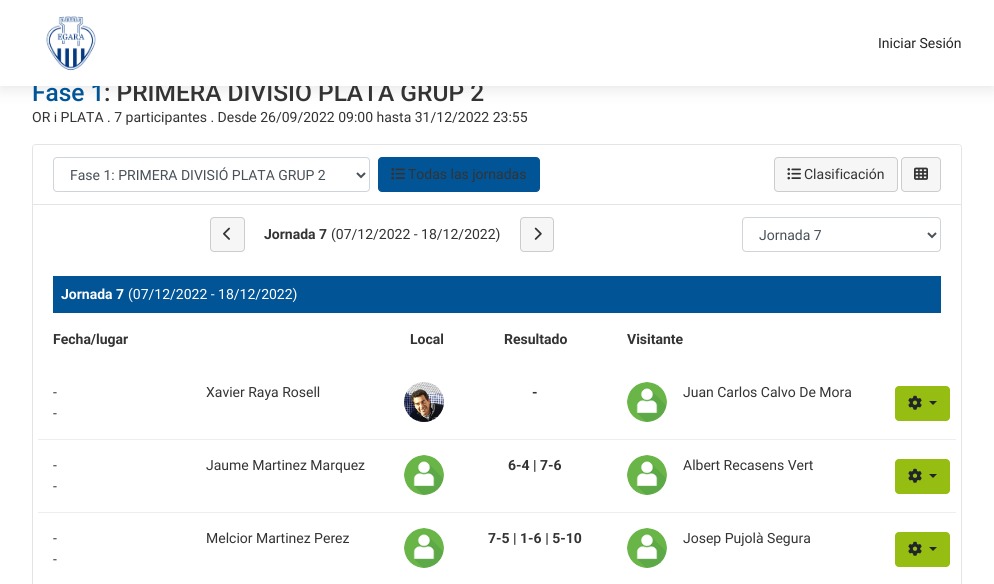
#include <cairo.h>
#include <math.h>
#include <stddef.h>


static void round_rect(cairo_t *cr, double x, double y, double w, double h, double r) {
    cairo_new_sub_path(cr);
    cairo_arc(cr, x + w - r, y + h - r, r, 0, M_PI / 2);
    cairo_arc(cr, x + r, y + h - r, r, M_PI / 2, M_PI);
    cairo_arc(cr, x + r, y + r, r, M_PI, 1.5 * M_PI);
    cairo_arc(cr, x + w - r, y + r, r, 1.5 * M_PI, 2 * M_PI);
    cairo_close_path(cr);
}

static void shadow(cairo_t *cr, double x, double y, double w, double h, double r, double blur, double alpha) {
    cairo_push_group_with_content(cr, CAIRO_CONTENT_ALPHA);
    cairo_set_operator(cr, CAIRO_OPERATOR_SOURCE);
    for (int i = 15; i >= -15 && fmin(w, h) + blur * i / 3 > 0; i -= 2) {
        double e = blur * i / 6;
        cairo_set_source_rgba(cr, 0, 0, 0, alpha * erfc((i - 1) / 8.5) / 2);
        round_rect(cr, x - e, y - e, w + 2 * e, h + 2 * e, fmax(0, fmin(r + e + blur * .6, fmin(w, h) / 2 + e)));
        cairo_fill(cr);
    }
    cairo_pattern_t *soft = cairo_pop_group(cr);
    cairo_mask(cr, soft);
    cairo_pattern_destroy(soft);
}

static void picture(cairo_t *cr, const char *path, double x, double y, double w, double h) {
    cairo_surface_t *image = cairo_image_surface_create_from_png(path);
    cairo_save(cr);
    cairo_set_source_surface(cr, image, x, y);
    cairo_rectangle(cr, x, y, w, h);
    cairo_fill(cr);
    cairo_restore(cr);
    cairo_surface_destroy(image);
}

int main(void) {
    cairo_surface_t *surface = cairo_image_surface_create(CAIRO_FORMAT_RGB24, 994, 584);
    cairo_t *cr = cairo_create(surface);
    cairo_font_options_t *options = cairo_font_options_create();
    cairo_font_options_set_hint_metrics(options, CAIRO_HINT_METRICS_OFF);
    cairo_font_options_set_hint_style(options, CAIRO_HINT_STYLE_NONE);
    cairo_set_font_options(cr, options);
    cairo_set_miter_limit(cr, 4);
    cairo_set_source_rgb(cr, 1, 1, 1);
    cairo_paint(cr);
    cairo_set_source_rgb(cr, 0, 0, 0);
    shadow(cr, 0, 3, 994, 86, 0, 8, 0.1);
    cairo_select_font_face(cr, "Roboto Medium", CAIRO_FONT_SLANT_NORMAL, CAIRO_FONT_WEIGHT_NORMAL);
    cairo_set_font_size(cr, 24.5);
    cairo_set_source_rgb(cr, 0.004, 0.329, 0.588);
    cairo_move_to(cr, 32, 101);
    cairo_show_text(cr, "Fase 1");
    cairo_set_source_rgb(cr, 0.2, 0.2, 0.2);
    cairo_move_to(cr, 104, 101);
    cairo_show_text(cr, ": PRIMERA DIVISIÓ PLATA GRUP 2");
    cairo_set_source_rgb(cr, 1, 1, 1);
    cairo_rectangle(cr, 0, 0, 994, 86);
    cairo_fill(cr);
    picture(cr, "img1.png", 46, 16, 50, 55);
    cairo_select_font_face(cr, "Roboto", CAIRO_FONT_SLANT_NORMAL, CAIRO_FONT_WEIGHT_NORMAL);
    cairo_set_font_size(cr, 14);
    cairo_set_source_rgb(cr, 0.141, 0.141, 0.141);
    cairo_move_to(cr, 878, 48);
    cairo_show_text(cr, "Iniciar Sesión");
    cairo_set_source_rgb(cr, 0.2, 0.2, 0.2);
    cairo_move_to(cr, 32, 122);
    cairo_show_text(cr, "OR i PLATA . 7 participantes . Desde 26/09/2022 09:00 hasta 31/12/2022 23:55");
    round_rect(cr, 32.5, 144.5, 929, 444, 3.5);
    cairo_set_source_rgb(cr, 0.894, 0.894, 0.894);
    cairo_set_line_width(cr, 1);
    cairo_stroke(cr);
    cairo_set_source_rgb(cr, 1, 1, 1);
    cairo_new_path(cr);
    cairo_move_to(cr, 36, 145);
    cairo_line_to(cr, 958, 145);
    cairo_curve_to(cr, 959.5, 145, 961, 146.5, 961, 148);
    cairo_line_to(cr, 961, 205);
    cairo_line_to(cr, 33, 205);
    cairo_line_to(cr, 33, 148);
    cairo_curve_to(cr, 33, 146.5, 34.5, 145, 36, 145);
    cairo_close_path(cr);
    cairo_fill(cr);
    cairo_set_source_rgb(cr, 0.894, 0.894, 0.894);
    cairo_rectangle(cr, 33, 204, 928, 1);
    cairo_fill(cr);
    round_rect(cr, 53.5, 157.5, 316, 34, 3.5);
    cairo_set_source_rgb(cr, 0.808, 0.831, 0.855);
    cairo_stroke(cr);
    cairo_new_path(cr);
    cairo_move_to(cr, 357, 173);
    cairo_line_to(cr, 361, 177);
    cairo_line_to(cr, 365, 173);
    cairo_set_source_rgb(cr, 0.286, 0.314, 0.341);
    cairo_set_line_width(cr, 2);
    cairo_stroke(cr);
    cairo_move_to(cr, 70, 180);
    cairo_show_text(cr, "Fase 1: PRIMERA DIVISIÓ PLATA GRUP 2");
    cairo_set_source_rgb(cr, 0.004, 0.329, 0.588);
    round_rect(cr, 378.5, 157.5, 161, 34, 3.5);
    cairo_fill_preserve(cr);
    cairo_set_line_width(cr, 1);
    cairo_stroke(cr);
    picture(cr, "img2.png", 391, 168, 14, 12);
    cairo_set_source_rgb(cr, 0.2, 0.2, 0.2);
    cairo_move_to(cr, 408, 179);
    cairo_show_text(cr, "Todas las jornadas");
    cairo_set_source_rgb(cr, 0.961, 0.961, 0.961);
    round_rect(cr, 774.5, 157.5, 123, 34, 3.5);
    cairo_fill_preserve(cr);
    cairo_set_source_rgb(cr, 0.8, 0.8, 0.8);
    cairo_stroke(cr);
    picture(cr, "img3.png", 787, 168, 14, 12);
    cairo_set_source_rgb(cr, 0.2, 0.2, 0.2);
    cairo_move_to(cr, 804, 179);
    cairo_show_text(cr, "Clasificación");
    cairo_set_source_rgb(cr, 0.961, 0.961, 0.961);
    round_rect(cr, 901.5, 157.5, 39, 34, 3.5);
    cairo_fill_preserve(cr);
    cairo_set_source_rgb(cr, 0.8, 0.8, 0.8);
    cairo_stroke(cr);
    picture(cr, "img4.png", 914, 167, 14, 13);
    cairo_set_source_rgb(cr, 0.961, 0.961, 0.961);
    round_rect(cr, 210.5, 217.5, 34, 34, 3.5);
    cairo_fill_preserve(cr);
    cairo_set_source_rgb(cr, 0.8, 0.8, 0.8);
    cairo_stroke(cr);
    picture(cr, "img5.png", 223, 227, 7, 13);
    cairo_select_font_face(cr, "Roboto", CAIRO_FONT_SLANT_NORMAL, CAIRO_FONT_WEIGHT_BOLD);
    cairo_set_source_rgb(cr, 0.2, 0.2, 0.2);
    cairo_move_to(cr, 264, 239);
    cairo_show_text(cr, "Jornada 7");
    cairo_select_font_face(cr, "Roboto", CAIRO_FONT_SLANT_NORMAL, CAIRO_FONT_WEIGHT_NORMAL);
    cairo_move_to(cr, 331, 239);
    cairo_show_text(cr, "(07/12/2022 - 18/12/2022)");
    cairo_set_source_rgb(cr, 0.961, 0.961, 0.961);
    round_rect(cr, 520.5, 217.5, 33, 34, 3.5);
    cairo_fill_preserve(cr);
    cairo_set_source_rgb(cr, 0.8, 0.8, 0.8);
    cairo_stroke(cr);
    picture(cr, "img6.png", 534, 227, 8, 13);
    round_rect(cr, 742.5, 217.5, 198, 34, 3.5);
    cairo_set_source_rgb(cr, 0.808, 0.831, 0.855);
    cairo_stroke(cr);
    cairo_new_path(cr);
    cairo_move_to(cr, 928, 233);
    cairo_line_to(cr, 932, 237);
    cairo_line_to(cr, 936, 233);
    cairo_set_source_rgb(cr, 0.286, 0.314, 0.341);
    cairo_set_line_width(cr, 2);
    cairo_stroke(cr);
    cairo_move_to(cr, 759, 240);
    cairo_show_text(cr, "Jornada 7");
    cairo_set_source_rgb(cr, 0.004, 0.329, 0.588);
    cairo_rectangle(cr, 53, 276, 888, 37);
    cairo_fill(cr);
    cairo_select_font_face(cr, "Roboto", CAIRO_FONT_SLANT_NORMAL, CAIRO_FONT_WEIGHT_BOLD);
    cairo_set_source_rgb(cr, 1, 1, 1);
    cairo_move_to(cr, 61, 299);
    cairo_show_text(cr, "Jornada 7");
    cairo_select_font_face(cr, "Roboto", CAIRO_FONT_SLANT_NORMAL, CAIRO_FONT_WEIGHT_NORMAL);
    cairo_move_to(cr, 128, 299);
    cairo_show_text(cr, "(07/12/2022 - 18/12/2022)");
    cairo_select_font_face(cr, "Roboto", CAIRO_FONT_SLANT_NORMAL, CAIRO_FONT_WEIGHT_BOLD);
    cairo_set_source_rgb(cr, 0.2, 0.2, 0.2);
    cairo_move_to(cr, 53, 344);
    cairo_show_text(cr, "Fecha/lugar");
    cairo_move_to(cr, 410, 344);
    cairo_show_text(cr, "Local");
    cairo_move_to(cr, 504, 344);
    cairo_show_text(cr, "Resultado");
    cairo_move_to(cr, 627, 344);
    cairo_show_text(cr, "Visitante");
    cairo_set_source_rgb(cr, 0.933, 0.933, 0.933);
    cairo_rectangle(cr, 38, 439, 918, 1);
    cairo_fill(cr);
    cairo_select_font_face(cr, "Roboto", CAIRO_FONT_SLANT_NORMAL, CAIRO_FONT_WEIGHT_NORMAL);
    cairo_set_source_rgb(cr, 0.2, 0.2, 0.2);
    cairo_move_to(cr, 53, 397);
    cairo_show_text(cr, "-");
    cairo_move_to(cr, 53, 418);
    cairo_show_text(cr, "-");
    cairo_move_to(cr, 206, 397);
    cairo_show_text(cr, "Xavier Raya Rosell");
    picture(cr, "img7.png", 404, 382, 40, 40);
    cairo_select_font_face(cr, "Roboto", CAIRO_FONT_SLANT_NORMAL, CAIRO_FONT_WEIGHT_BOLD);
    cairo_move_to(cr, 532, 397);
    cairo_show_text(cr, "-");
    picture(cr, "img8.png", 627, 382, 40, 40);
    cairo_select_font_face(cr, "Roboto", CAIRO_FONT_SLANT_NORMAL, CAIRO_FONT_WEIGHT_NORMAL);
    cairo_move_to(cr, 683, 397);
    cairo_show_text(cr, "Juan Carlos Calvo De Mora");
    cairo_set_source_rgb(cr, 0.588, 0.741, 0.071);
    round_rect(cr, 895.5, 386.5, 54, 34, 3.5);
    cairo_fill_preserve(cr);
    cairo_set_line_width(cr, 1);
    cairo_stroke(cr);
    picture(cr, "img9.png", 908, 395, 14, 15);
    cairo_set_source_rgb(cr, 0.129, 0.145, 0.161);
    cairo_new_path(cr);
    cairo_move_to(cr, 929, 401);
    cairo_line_to(cr, 937, 401);
    cairo_line_to(cr, 933, 405);
    cairo_close_path(cr);
    cairo_fill(cr);
    cairo_set_source_rgb(cr, 0.933, 0.933, 0.933);
    cairo_rectangle(cr, 38, 512, 918, 1);
    cairo_fill(cr);
    cairo_set_source_rgb(cr, 0.2, 0.2, 0.2);
    cairo_move_to(cr, 53, 470);
    cairo_show_text(cr, "-");
    cairo_move_to(cr, 53, 491);
    cairo_show_text(cr, "-");
    cairo_move_to(cr, 206, 470);
    cairo_show_text(cr, "Jaume Martinez Marquez");
    picture(cr, "img8.png", 404, 455, 40, 40);
    cairo_select_font_face(cr, "Roboto", CAIRO_FONT_SLANT_NORMAL, CAIRO_FONT_WEIGHT_BOLD);
    cairo_move_to(cr, 508, 470);
    cairo_show_text(cr, "6-4 | 7-6");
    picture(cr, "img8.png", 627, 455, 40, 40);
    cairo_select_font_face(cr, "Roboto", CAIRO_FONT_SLANT_NORMAL, CAIRO_FONT_WEIGHT_NORMAL);
    cairo_move_to(cr, 683, 470);
    cairo_show_text(cr, "Albert Recasens Vert");
    cairo_set_source_rgb(cr, 0.588, 0.741, 0.071);
    round_rect(cr, 895.5, 459.5, 54, 34, 3.5);
    cairo_fill_preserve(cr);
    cairo_stroke(cr);
    picture(cr, "img9.png", 908, 468, 14, 15);
    cairo_set_source_rgb(cr, 0.129, 0.145, 0.161);
    cairo_new_path(cr);
    cairo_move_to(cr, 929, 474);
    cairo_line_to(cr, 937, 474);
    cairo_line_to(cr, 933, 478);
    cairo_close_path(cr);
    cairo_fill(cr);
    cairo_set_source_rgb(cr, 0.2, 0.2, 0.2);
    cairo_move_to(cr, 53, 543);
    cairo_show_text(cr, "-");
    cairo_move_to(cr, 53, 564);
    cairo_show_text(cr, "-");
    cairo_move_to(cr, 206, 543);
    cairo_show_text(cr, "Melcior Martinez Perez");
    picture(cr, "img8.png", 404, 528, 40, 40);
    cairo_select_font_face(cr, "Roboto", CAIRO_FONT_SLANT_NORMAL, CAIRO_FONT_WEIGHT_BOLD);
    cairo_move_to(cr, 488, 543);
    cairo_show_text(cr, "7-5 | 1-6 | 5-10");
    picture(cr, "img8.png", 627, 528, 40, 40);
    cairo_select_font_face(cr, "Roboto", CAIRO_FONT_SLANT_NORMAL, CAIRO_FONT_WEIGHT_NORMAL);
    cairo_move_to(cr, 683, 543);
    cairo_show_text(cr, "Josep Pujolà Segura");
    cairo_set_source_rgb(cr, 0.588, 0.741, 0.071);
    round_rect(cr, 895.5, 532.5, 54, 34, 3.5);
    cairo_fill_preserve(cr);
    cairo_stroke(cr);
    picture(cr, "img9.png", 908, 541, 14, 15);
    cairo_set_source_rgb(cr, 0.129, 0.145, 0.161);
    cairo_new_path(cr);
    cairo_move_to(cr, 929, 547);
    cairo_line_to(cr, 937, 547);
    cairo_line_to(cr, 933, 551);
    cairo_close_path(cr);
    cairo_fill(cr);
    cairo_surface_write_to_png(surface, "page.png");
    cairo_font_options_destroy(options);
    cairo_destroy(cr);
    cairo_surface_destroy(surface);
    return 0;
}
